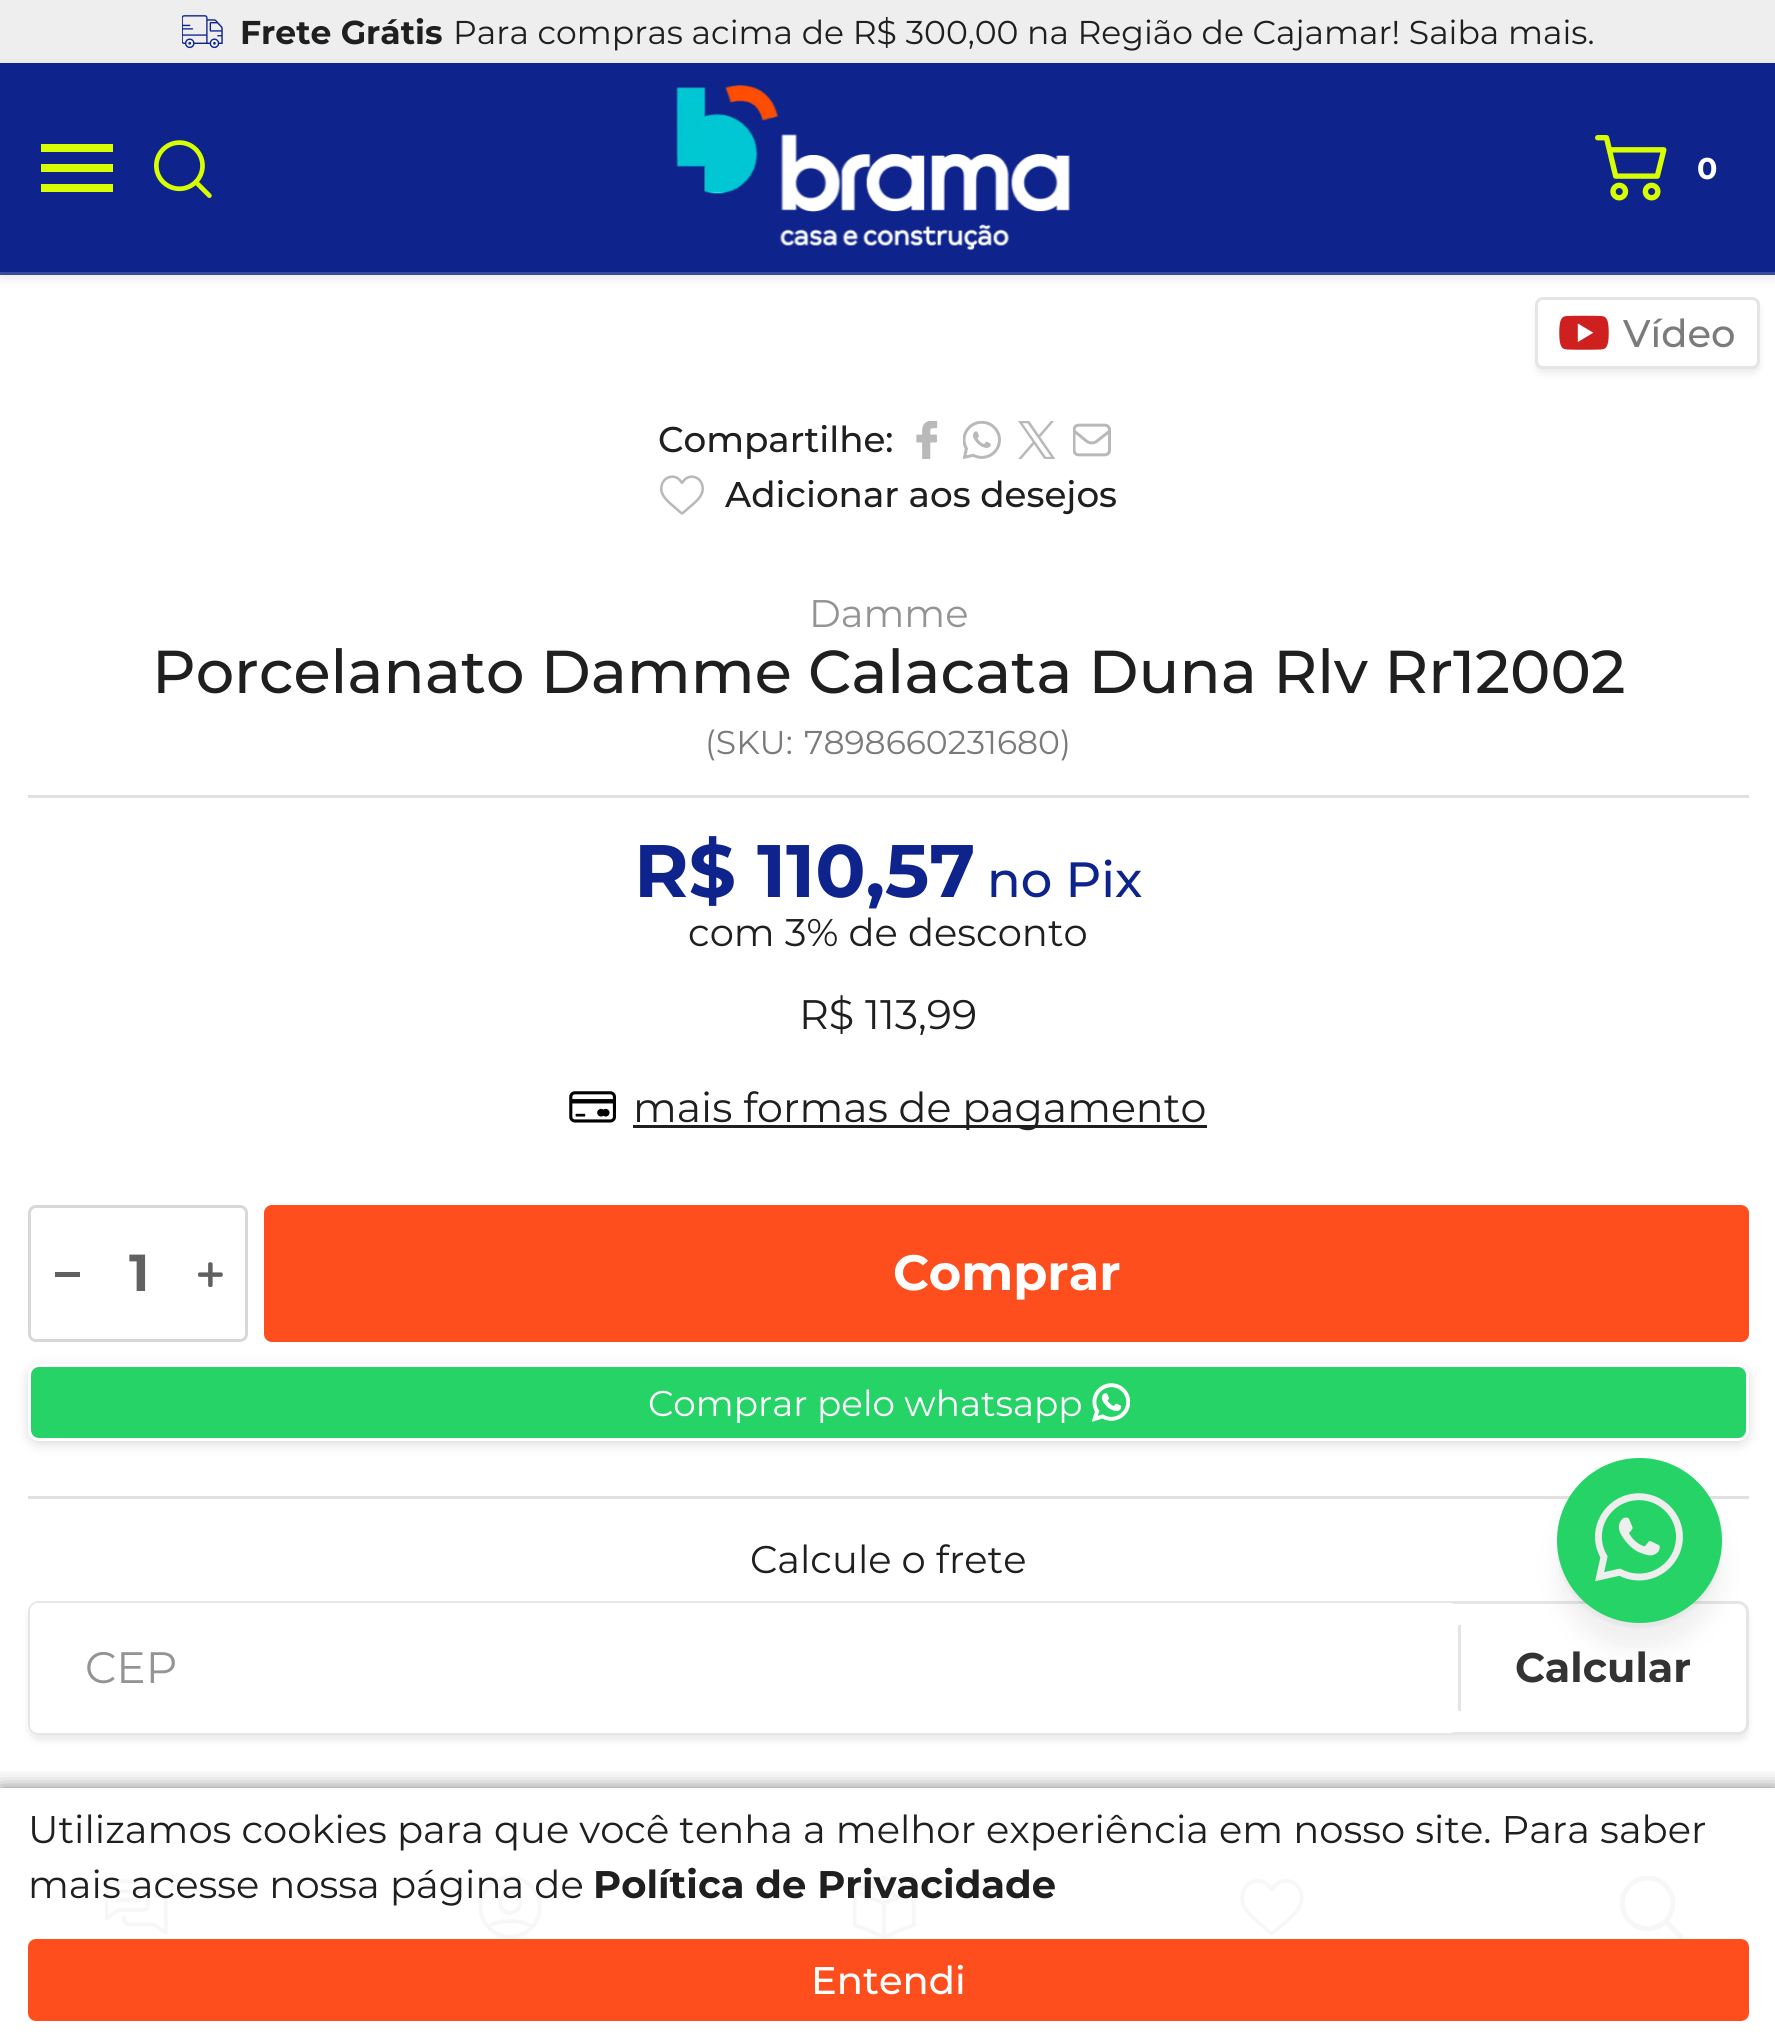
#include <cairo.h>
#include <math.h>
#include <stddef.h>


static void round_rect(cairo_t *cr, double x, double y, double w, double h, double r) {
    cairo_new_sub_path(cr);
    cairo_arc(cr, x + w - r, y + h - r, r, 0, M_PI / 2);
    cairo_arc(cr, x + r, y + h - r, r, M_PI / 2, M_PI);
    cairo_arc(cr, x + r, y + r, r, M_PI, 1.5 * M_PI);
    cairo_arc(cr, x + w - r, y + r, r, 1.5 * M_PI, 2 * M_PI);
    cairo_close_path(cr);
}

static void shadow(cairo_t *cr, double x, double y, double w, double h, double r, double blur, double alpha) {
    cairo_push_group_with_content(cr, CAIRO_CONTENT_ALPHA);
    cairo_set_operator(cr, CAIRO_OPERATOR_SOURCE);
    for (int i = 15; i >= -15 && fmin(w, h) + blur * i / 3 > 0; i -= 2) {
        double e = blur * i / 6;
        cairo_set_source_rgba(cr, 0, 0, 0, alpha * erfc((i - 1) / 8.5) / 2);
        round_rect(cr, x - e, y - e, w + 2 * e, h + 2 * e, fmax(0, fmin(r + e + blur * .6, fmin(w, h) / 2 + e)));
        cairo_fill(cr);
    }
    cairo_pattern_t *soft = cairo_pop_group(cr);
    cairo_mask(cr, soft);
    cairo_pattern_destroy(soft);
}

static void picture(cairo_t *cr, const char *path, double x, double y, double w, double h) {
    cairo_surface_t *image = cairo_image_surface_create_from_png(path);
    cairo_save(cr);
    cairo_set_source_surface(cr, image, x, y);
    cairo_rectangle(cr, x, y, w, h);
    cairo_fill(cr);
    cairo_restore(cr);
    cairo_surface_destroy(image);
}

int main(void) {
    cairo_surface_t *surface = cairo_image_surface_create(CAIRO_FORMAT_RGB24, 1775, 2034);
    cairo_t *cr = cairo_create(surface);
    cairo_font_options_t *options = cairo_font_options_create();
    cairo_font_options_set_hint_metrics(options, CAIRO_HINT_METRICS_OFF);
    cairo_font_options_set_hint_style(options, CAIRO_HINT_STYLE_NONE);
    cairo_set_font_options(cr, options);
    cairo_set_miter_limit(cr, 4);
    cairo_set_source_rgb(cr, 1, 1, 1);
    cairo_paint(cr);
    cairo_set_source_rgb(cr, 0.933, 0.933, 0.933);
    cairo_rectangle(cr, 0, 0, 1775, 63);
    cairo_fill(cr);
    picture(cr, "img1.png", 182, 15, 41, 34);
    cairo_select_font_face(cr, "Montserrat", CAIRO_FONT_SLANT_NORMAL, CAIRO_FONT_WEIGHT_BOLD);
    cairo_set_font_size(cr, 33);
    cairo_set_source_rgb(cr, 0.125, 0.122, 0.122);
    cairo_move_to(cr, 240, 44);
    cairo_show_text(cr, "Frete Grátis");
    cairo_select_font_face(cr, "Montserrat", CAIRO_FONT_SLANT_NORMAL, CAIRO_FONT_WEIGHT_NORMAL);
    cairo_move_to(cr, 453, 44);
    cairo_show_text(cr, "Para compras acima de R$ 300,00 na Região de Cajamar! Saiba mais.");
    cairo_set_source_rgb(cr, 0.322, 0.322, 0.322);
    shadow(cr, 0, 66, 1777, 212, 0, 5.5, 0.13);
    cairo_set_source_rgb(cr, 0.055, 0.141, 0.549);
    cairo_rectangle(cr, 0, 63, 1775, 209);
    cairo_fill(cr);
    cairo_set_source_rgb(cr, 0.224, 0.294, 0.624);
    cairo_rectangle(cr, 0, 272, 1775, 3);
    cairo_fill(cr);
    cairo_set_source_rgb(cr, 0.843, 1, 0);
    cairo_rectangle(cr, 41, 184, 72, 8);
    cairo_fill(cr);
    cairo_rectangle(cr, 41, 164, 72, 8);
    cairo_fill(cr);
    cairo_rectangle(cr, 41, 144, 72, 8);
    cairo_fill(cr);
    picture(cr, "img2.png", 154, 140, 58, 58);
    picture(cr, "img3.png", 676, 85, 394, 166);
    picture(cr, "img4.png", 1595, 135, 72, 66);
    cairo_select_font_face(cr, "Montserrat", CAIRO_FONT_SLANT_NORMAL, CAIRO_FONT_WEIGHT_BOLD);
    cairo_set_font_size(cr, 30);
    cairo_set_source_rgb(cr, 1, 1, 1);
    cairo_move_to(cr, 1697, 179);
    cairo_show_text(cr, "0");
    cairo_set_source_rgb(cr, 0.804, 0.804, 0.804);
    shadow(cr, 1535, 303, 225, 71, 8, 3, 0.35);
    cairo_set_source_rgb(cr, 1, 1, 1);
    round_rect(cr, 1536.5, 298.5, 222, 69, 6.5);
    cairo_fill_preserve(cr);
    cairo_set_source_rgb(cr, 0.898, 0.898, 0.898);
    cairo_set_line_width(cr, 3);
    cairo_stroke(cr);
    picture(cr, "img5.png", 1559, 315, 50, 35);
    cairo_select_font_face(cr, "Montserrat Medium", CAIRO_FONT_SLANT_NORMAL, CAIRO_FONT_WEIGHT_NORMAL);
    cairo_set_font_size(cr, 38.5);
    cairo_set_source_rgb(cr, 0.482, 0.482, 0.482);
    cairo_move_to(cr, 1623, 347);
    cairo_show_text(cr, "Vídeo");
    cairo_set_font_size(cr, 35.75);
    cairo_set_source_rgb(cr, 0.125, 0.122, 0.122);
    cairo_move_to(cr, 658, 452);
    cairo_show_text(cr, "Compartilhe:");
    picture(cr, "img6.png", 916, 421, 22, 38);
    picture(cr, "img7.png", 963, 421, 38, 38);
    picture(cr, "img8.png", 1018, 421, 38, 38);
    picture(cr, "img9.png", 1073, 423, 38, 34);
    picture(cr, "img10.png", 660, 475, 44, 40);
    cairo_move_to(cr, 725, 507);
    cairo_show_text(cr, "Adicionar aos desejos");
    cairo_set_source_rgb(cr, 0.882, 0.882, 0.882);
    cairo_rectangle(cr, 28, 795, 1721, 3);
    cairo_fill(cr);
    cairo_select_font_face(cr, "Montserrat", CAIRO_FONT_SLANT_NORMAL, CAIRO_FONT_WEIGHT_NORMAL);
    cairo_set_font_size(cr, 38.5);
    cairo_set_source_rgb(cr, 0.58, 0.58, 0.58);
    cairo_move_to(cr, 809, 627);
    cairo_show_text(cr, "Damme");
    cairo_select_font_face(cr, "Montserrat Medium", CAIRO_FONT_SLANT_NORMAL, CAIRO_FONT_WEIGHT_NORMAL);
    cairo_set_font_size(cr, 60.5);
    cairo_set_source_rgb(cr, 0.125, 0.122, 0.122);
    cairo_move_to(cr, 152, 693);
    cairo_show_text(cr, "Porcelanato Damme Calacata Duna Rlv Rr12002");
    cairo_select_font_face(cr, "Montserrat", CAIRO_FONT_SLANT_NORMAL, CAIRO_FONT_WEIGHT_NORMAL);
    cairo_set_font_size(cr, 33);
    cairo_set_source_rgb(cr, 0.482, 0.482, 0.482);
    cairo_move_to(cr, 705, 754);
    cairo_show_text(cr, "(SKU:");
    cairo_move_to(cr, 804, 754);
    cairo_show_text(cr, "7898660231680)");
    cairo_select_font_face(cr, "Montserrat", CAIRO_FONT_SLANT_NORMAL, CAIRO_FONT_WEIGHT_BOLD);
    cairo_set_font_size(cr, 74.25);
    cairo_set_source_rgb(cr, 0.055, 0.141, 0.549);
    cairo_move_to(cr, 634, 897);
    cairo_show_text(cr, "R$ 110,57");
    cairo_select_font_face(cr, "Montserrat Medium", CAIRO_FONT_SLANT_NORMAL, CAIRO_FONT_WEIGHT_NORMAL);
    cairo_set_font_size(cr, 49.5);
    cairo_move_to(cr, 987, 897);
    cairo_show_text(cr, "no Pix");
    cairo_select_font_face(cr, "Montserrat", CAIRO_FONT_SLANT_NORMAL, CAIRO_FONT_WEIGHT_NORMAL);
    cairo_set_font_size(cr, 38.5);
    cairo_set_source_rgb(cr, 0.125, 0.122, 0.122);
    cairo_move_to(cr, 688, 946);
    cairo_show_text(cr, "com 3% de desconto");
    cairo_set_font_size(cr, 41.25);
    cairo_move_to(cr, 799, 1029);
    cairo_show_text(cr, "R$ 113,99");
    picture(cr, "img11.png", 569, 1091, 47, 32);
    cairo_rectangle(cr, 633, 1125, 574, 3);
    cairo_fill(cr);
    cairo_move_to(cr, 633, 1122);
    cairo_show_text(cr, "mais formas de pagamento");
    round_rect(cr, 29.5, 1206.5, 217, 134, 6.5);
    cairo_set_source_rgb(cr, 0.847, 0.847, 0.847);
    cairo_stroke(cr);
    cairo_set_source_rgb(cr, 0.38, 0.38, 0.38);
    cairo_rectangle(cr, 55, 1272, 25, 5);
    cairo_fill(cr);
    cairo_select_font_face(cr, "Montserrat", CAIRO_FONT_SLANT_NORMAL, CAIRO_FONT_WEIGHT_BOLD);
    cairo_set_font_size(cr, 52);
    cairo_move_to(cr, 129, 1291);
    cairo_show_text(cr, "1");
    picture(cr, "img12.png", 198, 1262, 25, 25);
    cairo_set_source_rgb(cr, 0.996, 0.306, 0.118);
    round_rect(cr, 264, 1205, 1485, 137, 8);
    cairo_fill(cr);
    cairo_set_font_size(cr, 49.5);
    cairo_set_source_rgb(cr, 1, 1, 1);
    cairo_move_to(cr, 893, 1290);
    cairo_show_text(cr, "Comprar");
    cairo_set_source_rgb(cr, 0.694, 0.694, 0.694);
    shadow(cr, 28, 1367, 1721, 77, 11, 5.5, 0.46);
    cairo_set_source_rgb(cr, 0.145, 0.827, 0.4);
    round_rect(cr, 29.5, 1365.5, 1718, 74, 9.5);
    cairo_fill_preserve(cr);
    cairo_set_source_rgb(cr, 1, 1, 1);
    cairo_stroke(cr);
    cairo_select_font_face(cr, "Montserrat", CAIRO_FONT_SLANT_NORMAL, CAIRO_FONT_WEIGHT_NORMAL);
    cairo_set_font_size(cr, 35.75);
    cairo_move_to(cr, 648, 1416);
    cairo_show_text(cr, "Comprar pelo whatsapp");
    picture(cr, "img13.png", 1092, 1383, 38, 39);
    cairo_set_source_rgb(cr, 0.882, 0.882, 0.882);
    cairo_rectangle(cr, 28, 1496, 1721, 3);
    cairo_fill(cr);
    cairo_set_font_size(cr, 38.5);
    cairo_set_source_rgb(cr, 0.125, 0.122, 0.122);
    cairo_move_to(cr, 750, 1573);
    cairo_show_text(cr, "Calcule o frete");
    cairo_save(cr);
    cairo_set_fill_rule(cr, CAIRO_FILL_RULE_EVEN_ODD);
    cairo_new_path(cr);
    cairo_move_to(cr, 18, 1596);
    cairo_line_to(cr, 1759, 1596);
    cairo_line_to(cr, 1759, 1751);
    cairo_line_to(cr, 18, 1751);
    cairo_close_path(cr);
    cairo_move_to(cr, 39, 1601);
    cairo_line_to(cr, 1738, 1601);
    cairo_curve_to(cr, 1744, 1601, 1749, 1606, 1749, 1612);
    cairo_line_to(cr, 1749, 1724);
    cairo_curve_to(cr, 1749, 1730, 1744, 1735, 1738, 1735);
    cairo_line_to(cr, 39, 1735);
    cairo_curve_to(cr, 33, 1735, 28, 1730, 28, 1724);
    cairo_line_to(cr, 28, 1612);
    cairo_curve_to(cr, 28, 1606, 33, 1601, 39, 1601);
    cairo_close_path(cr);
    cairo_clip(cr);
    cairo_set_source_rgb(cr, 0.804, 0.804, 0.804);
    shadow(cr, 28, 1606, 1721, 135, 11, 3, 0.35);
    cairo_restore(cr);
    round_rect(cr, 29.5, 1602.5, 1718, 131, 9.5);
    cairo_set_source_rgb(cr, 0.898, 0.898, 0.898);
    cairo_stroke(cr);
    cairo_set_source_rgb(cr, 1, 1, 1);
    round_rect(cr, 30, 1603, 1428, 130, 8);
    cairo_fill(cr);
    cairo_set_font_size(cr, 44);
    cairo_set_source_rgb(cr, 0.58, 0.58, 0.58);
    cairo_move_to(cr, 85, 1683);
    cairo_show_text(cr, "CEP");
    cairo_set_source_rgb(cr, 0.898, 0.898, 0.898);
    cairo_rectangle(cr, 1458, 1625, 3, 86);
    cairo_fill(cr);
    cairo_select_font_face(cr, "Montserrat", CAIRO_FONT_SLANT_NORMAL, CAIRO_FONT_WEIGHT_BOLD);
    cairo_set_font_size(cr, 41.25);
    cairo_set_source_rgb(cr, 0.2, 0.2, 0.2);
    cairo_move_to(cr, 1515, 1682);
    cairo_show_text(cr, "Calcular");
    cairo_set_source_rgb(cr, 0.404, 0.404, 0.404);
    shadow(cr, 1557, 1485, 165, 165, 82.5, 11, 0.1);
    cairo_set_source_rgb(cr, 0, 0, 0);
    shadow(cr, 1557, 1463, 165, 165, 82.5, 1.5, 0.04);
    cairo_set_source_rgb(cr, 0.145, 0.827, 0.4);
    cairo_arc(cr, 1639.5, 1540.5, 82.5, 0, 2 * M_PI);
    cairo_fill(cr);
    picture(cr, "img14.png", 1595, 1493, 88, 88);
    picture(cr, "img15.png", 105, 1879, 63, 56);
    picture(cr, "img16.png", 479, 1876, 63, 63);
    picture(cr, "img17.png", 853, 1876, 63, 63);
    picture(cr, "img18.png", 1240, 1879, 64, 57);
    picture(cr, "img19.png", 1620, 1876, 63, 63);
    cairo_save(cr);
    cairo_rectangle(cr, 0, 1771, 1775, 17);
    cairo_clip(cr);
    cairo_set_source_rgb(cr, 0, 0, 0);
    shadow(cr, 0, 1788, 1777, 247, 0, 9.5, 0.5);
    cairo_restore(cr);
    cairo_select_font_face(cr, "Montserrat", CAIRO_FONT_SLANT_NORMAL, CAIRO_FONT_WEIGHT_NORMAL);
    cairo_set_font_size(cr, 38.5);
    cairo_set_source_rgb(cr, 0.125, 0.122, 0.122);
    cairo_move_to(cr, 28, 1843);
    cairo_show_text(cr, "Utilizamos cookies para que você tenha a melhor experiência em nosso site. Para saber");
    cairo_move_to(cr, 28, 1898);
    cairo_show_text(cr, "mais acesse nossa página de");
    cairo_select_font_face(cr, "Montserrat", CAIRO_FONT_SLANT_NORMAL, CAIRO_FONT_WEIGHT_BOLD);
    cairo_move_to(cr, 593, 1898);
    cairo_show_text(cr, "Política de Privacidade");
    cairo_set_source_rgb(cr, 0.996, 0.306, 0.118);
    round_rect(cr, 28, 1939, 1721, 82, 8);
    cairo_fill(cr);
    cairo_select_font_face(cr, "Montserrat Medium", CAIRO_FONT_SLANT_NORMAL, CAIRO_FONT_WEIGHT_NORMAL);
    cairo_set_source_rgb(cr, 1, 1, 1);
    cairo_move_to(cr, 811, 1994);
    cairo_show_text(cr, "Entendi");
    cairo_surface_write_to_png(surface, "page.png");
    cairo_font_options_destroy(options);
    cairo_destroy(cr);
    cairo_surface_destroy(surface);
    return 0;
}
